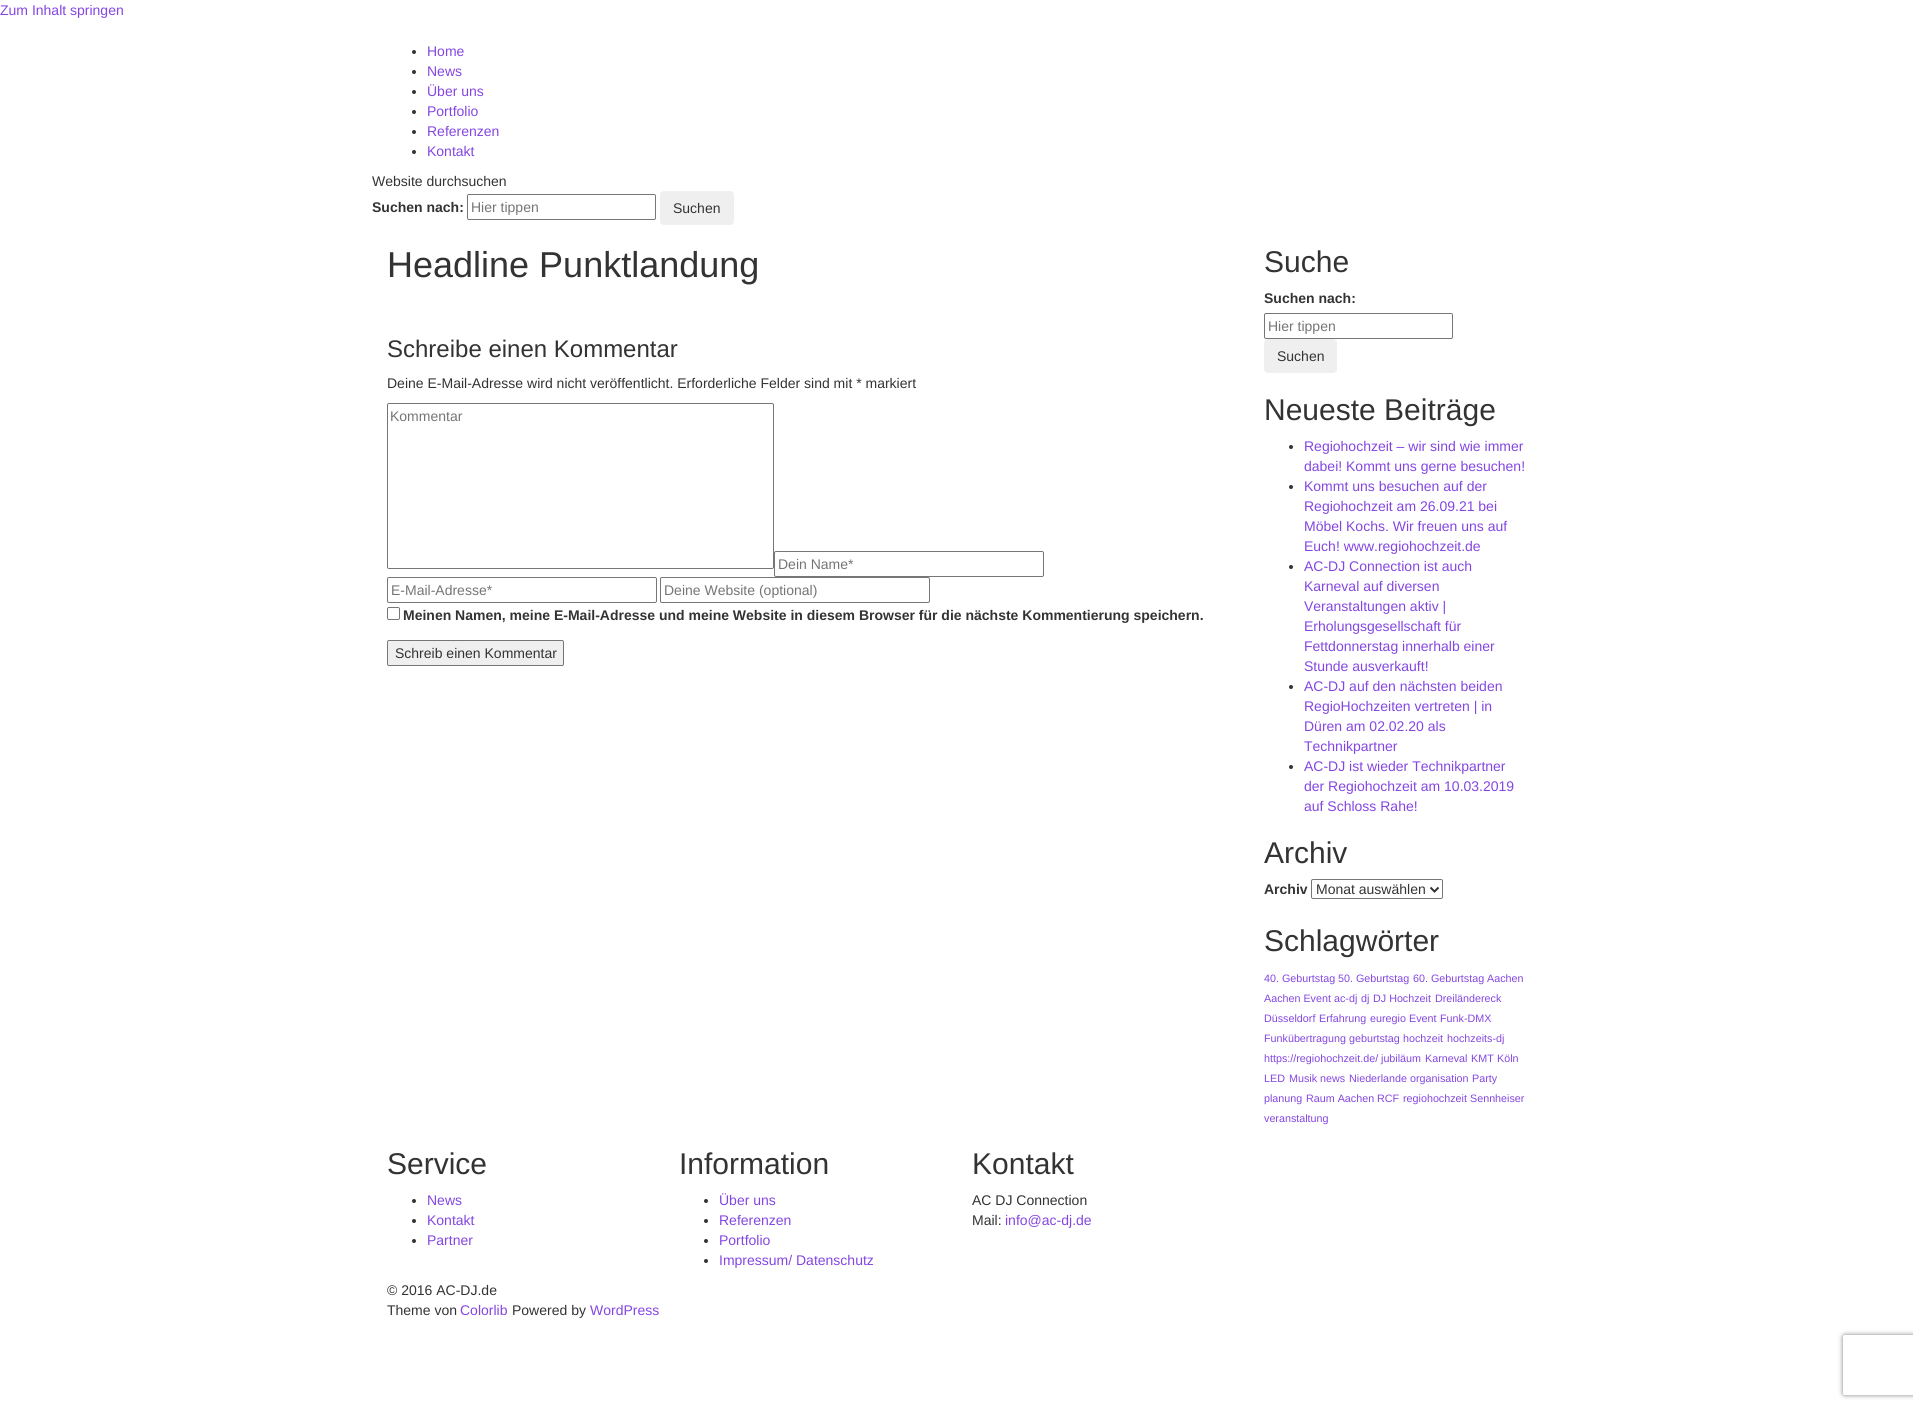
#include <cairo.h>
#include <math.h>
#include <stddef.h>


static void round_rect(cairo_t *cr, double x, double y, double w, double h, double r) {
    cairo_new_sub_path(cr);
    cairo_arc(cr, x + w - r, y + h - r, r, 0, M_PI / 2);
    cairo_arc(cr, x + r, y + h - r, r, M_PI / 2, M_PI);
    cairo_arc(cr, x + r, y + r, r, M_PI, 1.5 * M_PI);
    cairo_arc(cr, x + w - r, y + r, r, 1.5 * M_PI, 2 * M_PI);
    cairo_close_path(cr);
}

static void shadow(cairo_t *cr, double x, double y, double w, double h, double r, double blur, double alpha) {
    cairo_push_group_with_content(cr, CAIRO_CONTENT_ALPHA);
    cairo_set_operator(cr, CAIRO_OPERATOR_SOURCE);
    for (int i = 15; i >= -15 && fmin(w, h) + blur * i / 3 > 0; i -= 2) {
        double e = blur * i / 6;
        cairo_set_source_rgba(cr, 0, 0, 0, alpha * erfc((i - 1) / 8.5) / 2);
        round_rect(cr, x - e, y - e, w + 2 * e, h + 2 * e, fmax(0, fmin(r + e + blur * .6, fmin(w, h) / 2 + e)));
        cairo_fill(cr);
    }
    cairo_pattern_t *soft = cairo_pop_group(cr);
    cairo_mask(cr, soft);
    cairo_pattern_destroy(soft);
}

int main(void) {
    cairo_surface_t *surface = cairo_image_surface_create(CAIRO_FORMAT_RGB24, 1913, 1409);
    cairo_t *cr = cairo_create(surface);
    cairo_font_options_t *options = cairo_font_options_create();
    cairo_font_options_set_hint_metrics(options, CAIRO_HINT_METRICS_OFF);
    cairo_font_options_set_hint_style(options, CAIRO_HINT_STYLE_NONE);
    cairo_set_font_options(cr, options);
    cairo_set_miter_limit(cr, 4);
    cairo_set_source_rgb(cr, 1, 1, 1);
    cairo_paint(cr);
    cairo_select_font_face(cr, "Liberation Sans", CAIRO_FONT_SLANT_NORMAL, CAIRO_FONT_WEIGHT_NORMAL);
    cairo_set_font_size(cr, 14);
    cairo_set_source_rgb(cr, 0.518, 0.275, 0.886);
    cairo_move_to(cr, 0, 15);
    cairo_show_text(cr, "Zum Inhalt springen");
    cairo_set_source_rgb(cr, 0.2, 0.2, 0.2);
    cairo_new_path(cr);
    cairo_arc(cr, 414, 52, 2, 0, 2 * M_PI);
    cairo_fill(cr);
    cairo_set_source_rgb(cr, 0.518, 0.275, 0.886);
    cairo_move_to(cr, 427, 56);
    cairo_show_text(cr, "Home");
    cairo_set_source_rgb(cr, 0.2, 0.2, 0.2);
    cairo_new_path(cr);
    cairo_arc(cr, 414, 72, 2, 0, 2 * M_PI);
    cairo_fill(cr);
    cairo_set_source_rgb(cr, 0.518, 0.275, 0.886);
    cairo_move_to(cr, 427, 76);
    cairo_show_text(cr, "News");
    cairo_set_source_rgb(cr, 0.2, 0.2, 0.2);
    cairo_new_path(cr);
    cairo_arc(cr, 414, 92, 2, 0, 2 * M_PI);
    cairo_fill(cr);
    cairo_set_source_rgb(cr, 0.518, 0.275, 0.886);
    cairo_move_to(cr, 427, 96);
    cairo_show_text(cr, "Über uns");
    cairo_set_source_rgb(cr, 0.2, 0.2, 0.2);
    cairo_new_path(cr);
    cairo_arc(cr, 414, 112, 2, 0, 2 * M_PI);
    cairo_fill(cr);
    cairo_set_source_rgb(cr, 0.518, 0.275, 0.886);
    cairo_move_to(cr, 427, 116);
    cairo_show_text(cr, "Portfolio");
    cairo_set_source_rgb(cr, 0.2, 0.2, 0.2);
    cairo_new_path(cr);
    cairo_arc(cr, 414, 132, 2, 0, 2 * M_PI);
    cairo_fill(cr);
    cairo_set_source_rgb(cr, 0.518, 0.275, 0.886);
    cairo_move_to(cr, 427, 136);
    cairo_show_text(cr, "Referenzen");
    cairo_set_source_rgb(cr, 0.2, 0.2, 0.2);
    cairo_new_path(cr);
    cairo_arc(cr, 414, 152, 2, 0, 2 * M_PI);
    cairo_fill(cr);
    cairo_set_source_rgb(cr, 0.518, 0.275, 0.886);
    cairo_move_to(cr, 427, 156);
    cairo_show_text(cr, "Kontakt");
    cairo_set_source_rgb(cr, 0.2, 0.2, 0.2);
    cairo_move_to(cr, 372, 186);
    cairo_show_text(cr, "Website durchsuchen");
    cairo_select_font_face(cr, "Liberation Sans", CAIRO_FONT_SLANT_NORMAL, CAIRO_FONT_WEIGHT_BOLD);
    cairo_move_to(cr, 372, 212);
    cairo_show_text(cr, "Suchen nach:");
    round_rect(cr, 467.5, 194.5, 188, 25, 1.5);
    cairo_set_source_rgb(cr, 0.463, 0.463, 0.463);
    cairo_set_line_width(cr, 1);
    cairo_stroke(cr);
    cairo_select_font_face(cr, "Liberation Sans", CAIRO_FONT_SLANT_NORMAL, CAIRO_FONT_WEIGHT_NORMAL);
    cairo_set_source_rgb(cr, 0.459, 0.459, 0.459);
    cairo_move_to(cr, 471, 212);
    cairo_show_text(cr, "Hier tippen");
    cairo_set_source_rgb(cr, 0.937, 0.937, 0.937);
    round_rect(cr, 660, 191, 74, 34, 4);
    cairo_fill(cr);
    cairo_set_source_rgb(cr, 0.2, 0.2, 0.2);
    cairo_move_to(cr, 673, 213);
    cairo_show_text(cr, "Suchen");
    cairo_set_font_size(cr, 36);
    cairo_move_to(cr, 387, 277);
    cairo_show_text(cr, "Headline Punktlandung");
    cairo_set_font_size(cr, 24);
    cairo_move_to(cr, 387, 357);
    cairo_show_text(cr, "Schreibe einen Kommentar");
    cairo_set_font_size(cr, 14);
    cairo_move_to(cr, 387, 388);
    cairo_show_text(cr, "Deine E-Mail-Adresse wird nicht veröffentlicht. Erforderliche Felder sind mit * markiert");
    round_rect(cr, 387.5, 403.5, 386, 165, 1.5);
    cairo_set_source_rgb(cr, 0.463, 0.463, 0.463);
    cairo_stroke(cr);
    cairo_set_source_rgb(cr, 0.459, 0.459, 0.459);
    cairo_move_to(cr, 390, 421);
    cairo_show_text(cr, "Kommentar");
    round_rect(cr, 774.5, 551.5, 269, 25, 1.5);
    cairo_set_source_rgb(cr, 0.463, 0.463, 0.463);
    cairo_stroke(cr);
    cairo_set_source_rgb(cr, 0.459, 0.459, 0.459);
    cairo_move_to(cr, 778, 569);
    cairo_show_text(cr, "Dein Name*");
    round_rect(cr, 387.5, 577.5, 269, 25, 1.5);
    cairo_set_source_rgb(cr, 0.463, 0.463, 0.463);
    cairo_stroke(cr);
    cairo_set_source_rgb(cr, 0.459, 0.459, 0.459);
    cairo_move_to(cr, 391, 595);
    cairo_show_text(cr, "E-Mail-Adresse*");
    round_rect(cr, 660.5, 577.5, 269, 25, 1.5);
    cairo_set_source_rgb(cr, 0.463, 0.463, 0.463);
    cairo_stroke(cr);
    cairo_set_source_rgb(cr, 0.459, 0.459, 0.459);
    cairo_move_to(cr, 664, 595);
    cairo_show_text(cr, "Deine Website (optional)");
    round_rect(cr, 387.5, 607.5, 12, 12, 1.5);
    cairo_set_source_rgb(cr, 0.463, 0.463, 0.463);
    cairo_stroke(cr);
    cairo_select_font_face(cr, "Liberation Sans", CAIRO_FONT_SLANT_NORMAL, CAIRO_FONT_WEIGHT_BOLD);
    cairo_set_source_rgb(cr, 0.2, 0.2, 0.2);
    cairo_move_to(cr, 403, 620);
    cairo_show_text(cr, "Meinen Namen, meine E-Mail-Adresse und meine Website in diesem Browser für die nächste Kommentierung speichern.");
    cairo_set_source_rgb(cr, 0.937, 0.937, 0.937);
    round_rect(cr, 387.5, 640.5, 176, 25, 1.5);
    cairo_fill_preserve(cr);
    cairo_set_source_rgb(cr, 0.463, 0.463, 0.463);
    cairo_stroke(cr);
    cairo_select_font_face(cr, "Liberation Sans", CAIRO_FONT_SLANT_NORMAL, CAIRO_FONT_WEIGHT_NORMAL);
    cairo_set_source_rgb(cr, 0.2, 0.2, 0.2);
    cairo_move_to(cr, 395, 658);
    cairo_show_text(cr, "Schreib einen Kommentar");
    cairo_set_font_size(cr, 30);
    cairo_move_to(cr, 1264, 272);
    cairo_show_text(cr, "Suche");
    cairo_select_font_face(cr, "Liberation Sans", CAIRO_FONT_SLANT_NORMAL, CAIRO_FONT_WEIGHT_BOLD);
    cairo_set_font_size(cr, 14);
    cairo_move_to(cr, 1264, 303);
    cairo_show_text(cr, "Suchen nach:");
    round_rect(cr, 1264.5, 313.5, 188, 25, 1.5);
    cairo_set_source_rgb(cr, 0.463, 0.463, 0.463);
    cairo_stroke(cr);
    cairo_select_font_face(cr, "Liberation Sans", CAIRO_FONT_SLANT_NORMAL, CAIRO_FONT_WEIGHT_NORMAL);
    cairo_set_source_rgb(cr, 0.459, 0.459, 0.459);
    cairo_move_to(cr, 1268, 331);
    cairo_show_text(cr, "Hier tippen");
    cairo_set_source_rgb(cr, 0.937, 0.937, 0.937);
    round_rect(cr, 1264, 339, 73, 34, 4);
    cairo_fill(cr);
    cairo_set_source_rgb(cr, 0.2, 0.2, 0.2);
    cairo_move_to(cr, 1277, 361);
    cairo_show_text(cr, "Suchen");
    cairo_set_font_size(cr, 30);
    cairo_move_to(cr, 1264, 420);
    cairo_show_text(cr, "Neueste Beiträge");
    cairo_new_path(cr);
    cairo_arc(cr, 1291, 447, 2, 0, 2 * M_PI);
    cairo_fill(cr);
    cairo_set_font_size(cr, 14);
    cairo_set_source_rgb(cr, 0.518, 0.275, 0.886);
    cairo_move_to(cr, 1304, 451);
    cairo_show_text(cr, "Regiohochzeit – wir sind wie immer");
    cairo_move_to(cr, 1304, 471);
    cairo_show_text(cr, "dabei! Kommt uns gerne besuchen!");
    cairo_set_source_rgb(cr, 0.2, 0.2, 0.2);
    cairo_new_path(cr);
    cairo_arc(cr, 1291, 487, 2, 0, 2 * M_PI);
    cairo_fill(cr);
    cairo_set_source_rgb(cr, 0.518, 0.275, 0.886);
    cairo_move_to(cr, 1304, 491);
    cairo_show_text(cr, "Kommt uns besuchen auf der");
    cairo_move_to(cr, 1304, 511);
    cairo_show_text(cr, "Regiohochzeit am 26.09.21 bei");
    cairo_move_to(cr, 1304, 531);
    cairo_show_text(cr, "Möbel Kochs. Wir freuen uns auf");
    cairo_move_to(cr, 1304, 551);
    cairo_show_text(cr, "Euch! www.regiohochzeit.de");
    cairo_set_source_rgb(cr, 0.2, 0.2, 0.2);
    cairo_new_path(cr);
    cairo_arc(cr, 1291, 567, 2, 0, 2 * M_PI);
    cairo_fill(cr);
    cairo_set_source_rgb(cr, 0.518, 0.275, 0.886);
    cairo_move_to(cr, 1304, 571);
    cairo_show_text(cr, "AC-DJ Connection ist auch");
    cairo_move_to(cr, 1304, 591);
    cairo_show_text(cr, "Karneval auf diversen");
    cairo_move_to(cr, 1304, 611);
    cairo_show_text(cr, "Veranstaltungen aktiv |");
    cairo_move_to(cr, 1304, 631);
    cairo_show_text(cr, "Erholungsgesellschaft für");
    cairo_move_to(cr, 1304, 651);
    cairo_show_text(cr, "Fettdonnerstag innerhalb einer");
    cairo_move_to(cr, 1304, 671);
    cairo_show_text(cr, "Stunde ausverkauft!");
    cairo_set_source_rgb(cr, 0.2, 0.2, 0.2);
    cairo_new_path(cr);
    cairo_arc(cr, 1291, 687, 2, 0, 2 * M_PI);
    cairo_fill(cr);
    cairo_set_source_rgb(cr, 0.518, 0.275, 0.886);
    cairo_move_to(cr, 1304, 691);
    cairo_show_text(cr, "AC-DJ auf den nächsten beiden");
    cairo_move_to(cr, 1304, 711);
    cairo_show_text(cr, "RegioHochzeiten vertreten | in");
    cairo_move_to(cr, 1304, 731);
    cairo_show_text(cr, "Düren am 02.02.20 als");
    cairo_move_to(cr, 1304, 751);
    cairo_show_text(cr, "Technikpartner");
    cairo_set_source_rgb(cr, 0.2, 0.2, 0.2);
    cairo_new_path(cr);
    cairo_arc(cr, 1291, 767, 2, 0, 2 * M_PI);
    cairo_fill(cr);
    cairo_set_source_rgb(cr, 0.518, 0.275, 0.886);
    cairo_move_to(cr, 1304, 771);
    cairo_show_text(cr, "AC-DJ ist wieder Technikpartner");
    cairo_move_to(cr, 1304, 791);
    cairo_show_text(cr, "der Regiohochzeit am 10.03.2019");
    cairo_move_to(cr, 1304, 811);
    cairo_show_text(cr, "auf Schloss Rahe!");
    cairo_set_font_size(cr, 30);
    cairo_set_source_rgb(cr, 0.2, 0.2, 0.2);
    cairo_move_to(cr, 1264, 863);
    cairo_show_text(cr, "Archiv");
    cairo_select_font_face(cr, "Liberation Sans", CAIRO_FONT_SLANT_NORMAL, CAIRO_FONT_WEIGHT_BOLD);
    cairo_set_font_size(cr, 14);
    cairo_move_to(cr, 1264, 894);
    cairo_show_text(cr, "Archiv");
    round_rect(cr, 1311.5, 879.5, 131, 19, 1.5);
    cairo_set_source_rgb(cr, 0.463, 0.463, 0.463);
    cairo_stroke(cr);
    cairo_new_path(cr);
    cairo_move_to(cr, 1430.5, 887.5);
    cairo_line_to(cr, 1434.5, 891.5);
    cairo_line_to(cr, 1438.5, 887.5);
    cairo_set_source_rgb(cr, 0.2, 0.2, 0.2);
    cairo_set_line_width(cr, 2);
    cairo_stroke(cr);
    cairo_select_font_face(cr, "Liberation Sans", CAIRO_FONT_SLANT_NORMAL, CAIRO_FONT_WEIGHT_NORMAL);
    cairo_move_to(cr, 1316, 894);
    cairo_show_text(cr, "Monat auswählen");
    cairo_set_font_size(cr, 30);
    cairo_move_to(cr, 1264, 951);
    cairo_show_text(cr, "Schlagwörter");
    cairo_set_font_size(cr, 10.75);
    cairo_set_source_rgb(cr, 0.518, 0.275, 0.886);
    cairo_move_to(cr, 1264, 982);
    cairo_show_text(cr, "40. Geburtstag");
    cairo_move_to(cr, 1338, 982);
    cairo_show_text(cr, "50. Geburtstag");
    cairo_move_to(cr, 1413, 982);
    cairo_show_text(cr, "60. Geburtstag");
    cairo_move_to(cr, 1487, 982);
    cairo_show_text(cr, "Aachen");
    cairo_move_to(cr, 1264, 1002);
    cairo_show_text(cr, "Aachen Event");
    cairo_move_to(cr, 1334, 1002);
    cairo_show_text(cr, "ac-dj");
    cairo_move_to(cr, 1361, 1002);
    cairo_show_text(cr, "dj");
    cairo_move_to(cr, 1373, 1002);
    cairo_show_text(cr, "DJ Hochzeit");
    cairo_move_to(cr, 1435, 1002);
    cairo_show_text(cr, "Dreiländereck");
    cairo_move_to(cr, 1264, 1022);
    cairo_show_text(cr, "Düsseldorf");
    cairo_move_to(cr, 1319, 1022);
    cairo_show_text(cr, "Erfahrung");
    cairo_move_to(cr, 1370, 1022);
    cairo_show_text(cr, "euregio");
    cairo_move_to(cr, 1409, 1022);
    cairo_show_text(cr, "Event");
    cairo_move_to(cr, 1440, 1022);
    cairo_show_text(cr, "Funk-DMX");
    cairo_move_to(cr, 1264, 1042);
    cairo_show_text(cr, "Funkübertragung");
    cairo_move_to(cr, 1349, 1042);
    cairo_show_text(cr, "geburtstag");
    cairo_move_to(cr, 1403, 1042);
    cairo_show_text(cr, "hochzeit");
    cairo_move_to(cr, 1447, 1042);
    cairo_show_text(cr, "hochzeits-dj");
    cairo_move_to(cr, 1264, 1062);
    cairo_show_text(cr, "https://regiohochzeit.de/");
    cairo_move_to(cr, 1381, 1062);
    cairo_show_text(cr, "jubiläum");
    cairo_move_to(cr, 1425, 1062);
    cairo_show_text(cr, "Karneval");
    cairo_move_to(cr, 1471, 1062);
    cairo_show_text(cr, "KMT");
    cairo_move_to(cr, 1497, 1062);
    cairo_show_text(cr, "Köln");
    cairo_move_to(cr, 1264, 1082);
    cairo_show_text(cr, "LED");
    cairo_move_to(cr, 1289, 1082);
    cairo_show_text(cr, "Musik");
    cairo_move_to(cr, 1320, 1082);
    cairo_show_text(cr, "news");
    cairo_move_to(cr, 1349, 1082);
    cairo_show_text(cr, "Niederlande");
    cairo_move_to(cr, 1410, 1082);
    cairo_show_text(cr, "organisation");
    cairo_move_to(cr, 1472, 1082);
    cairo_show_text(cr, "Party");
    cairo_move_to(cr, 1264, 1102);
    cairo_show_text(cr, "planung");
    cairo_move_to(cr, 1306, 1102);
    cairo_show_text(cr, "Raum Aachen");
    cairo_move_to(cr, 1377, 1102);
    cairo_show_text(cr, "RCF");
    cairo_move_to(cr, 1403, 1102);
    cairo_show_text(cr, "regiohochzeit");
    cairo_move_to(cr, 1470, 1102);
    cairo_show_text(cr, "Sennheiser");
    cairo_move_to(cr, 1264, 1122);
    cairo_show_text(cr, "veranstaltung");
    cairo_set_font_size(cr, 30);
    cairo_set_source_rgb(cr, 0.2, 0.2, 0.2);
    cairo_move_to(cr, 387, 1174);
    cairo_show_text(cr, "Service");
    cairo_new_path(cr);
    cairo_arc(cr, 414, 1201, 2, 0, 2 * M_PI);
    cairo_fill(cr);
    cairo_set_font_size(cr, 14);
    cairo_set_source_rgb(cr, 0.518, 0.275, 0.886);
    cairo_move_to(cr, 427, 1205);
    cairo_show_text(cr, "News");
    cairo_set_source_rgb(cr, 0.2, 0.2, 0.2);
    cairo_new_path(cr);
    cairo_arc(cr, 414, 1221, 2, 0, 2 * M_PI);
    cairo_fill(cr);
    cairo_set_source_rgb(cr, 0.518, 0.275, 0.886);
    cairo_move_to(cr, 427, 1225);
    cairo_show_text(cr, "Kontakt");
    cairo_set_source_rgb(cr, 0.2, 0.2, 0.2);
    cairo_new_path(cr);
    cairo_arc(cr, 414, 1241, 2, 0, 2 * M_PI);
    cairo_fill(cr);
    cairo_set_source_rgb(cr, 0.518, 0.275, 0.886);
    cairo_move_to(cr, 427, 1245);
    cairo_show_text(cr, "Partner");
    cairo_set_font_size(cr, 30);
    cairo_set_source_rgb(cr, 0.2, 0.2, 0.2);
    cairo_move_to(cr, 679, 1174);
    cairo_show_text(cr, "Information");
    cairo_new_path(cr);
    cairo_arc(cr, 706, 1201, 2, 0, 2 * M_PI);
    cairo_fill(cr);
    cairo_set_font_size(cr, 14);
    cairo_set_source_rgb(cr, 0.518, 0.275, 0.886);
    cairo_move_to(cr, 719, 1205);
    cairo_show_text(cr, "Über uns");
    cairo_set_source_rgb(cr, 0.2, 0.2, 0.2);
    cairo_new_path(cr);
    cairo_arc(cr, 706, 1221, 2, 0, 2 * M_PI);
    cairo_fill(cr);
    cairo_set_source_rgb(cr, 0.518, 0.275, 0.886);
    cairo_move_to(cr, 719, 1225);
    cairo_show_text(cr, "Referenzen");
    cairo_set_source_rgb(cr, 0.2, 0.2, 0.2);
    cairo_new_path(cr);
    cairo_arc(cr, 706, 1241, 2, 0, 2 * M_PI);
    cairo_fill(cr);
    cairo_set_source_rgb(cr, 0.518, 0.275, 0.886);
    cairo_move_to(cr, 719, 1245);
    cairo_show_text(cr, "Portfolio");
    cairo_set_source_rgb(cr, 0.2, 0.2, 0.2);
    cairo_new_path(cr);
    cairo_arc(cr, 706, 1261, 2, 0, 2 * M_PI);
    cairo_fill(cr);
    cairo_set_source_rgb(cr, 0.518, 0.275, 0.886);
    cairo_move_to(cr, 719, 1265);
    cairo_show_text(cr, "Impressum/ Datenschutz");
    cairo_set_font_size(cr, 30);
    cairo_set_source_rgb(cr, 0.2, 0.2, 0.2);
    cairo_move_to(cr, 972, 1174);
    cairo_show_text(cr, "Kontakt");
    cairo_set_font_size(cr, 14);
    cairo_move_to(cr, 972, 1205);
    cairo_show_text(cr, "AC DJ Connection");
    cairo_move_to(cr, 972, 1225);
    cairo_show_text(cr, "Mail:");
    cairo_set_source_rgb(cr, 0.518, 0.275, 0.886);
    cairo_move_to(cr, 1005, 1225);
    cairo_show_text(cr, "info@ac-dj.de");
    cairo_set_source_rgb(cr, 0.2, 0.2, 0.2);
    cairo_move_to(cr, 387, 1295);
    cairo_show_text(cr, "© 2016 AC-DJ.de");
    cairo_move_to(cr, 387, 1315);
    cairo_show_text(cr, "Theme von");
    cairo_set_source_rgb(cr, 0.518, 0.275, 0.886);
    cairo_move_to(cr, 460, 1315);
    cairo_show_text(cr, "Colorlib");
    cairo_set_source_rgb(cr, 0.2, 0.2, 0.2);
    cairo_move_to(cr, 512, 1315);
    cairo_show_text(cr, "Powered by");
    cairo_set_source_rgb(cr, 0.518, 0.275, 0.886);
    cairo_move_to(cr, 590, 1315);
    cairo_show_text(cr, "WordPress");
    cairo_save(cr);
    cairo_set_fill_rule(cr, CAIRO_FILL_RULE_EVEN_ODD);
    cairo_new_path(cr);
    cairo_move_to(cr, 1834, 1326);
    cairo_line_to(cr, 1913, 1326);
    cairo_line_to(cr, 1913, 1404);
    cairo_line_to(cr, 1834, 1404);
    cairo_close_path(cr);
    cairo_move_to(cr, 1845, 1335);
    cairo_line_to(cr, 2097, 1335);
    cairo_curve_to(cr, 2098, 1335, 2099, 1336, 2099, 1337);
    cairo_line_to(cr, 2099, 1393);
    cairo_curve_to(cr, 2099, 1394, 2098, 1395, 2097, 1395);
    cairo_line_to(cr, 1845, 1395);
    cairo_curve_to(cr, 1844, 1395, 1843, 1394, 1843, 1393);
    cairo_line_to(cr, 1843, 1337);
    cairo_curve_to(cr, 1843, 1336, 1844, 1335, 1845, 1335);
    cairo_close_path(cr);
    cairo_clip(cr);
    cairo_set_source_rgb(cr, 0.502, 0.502, 0.502);
    shadow(cr, 1843, 1335, 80, 60, 2, 2.5, 1);
    cairo_restore(cr);
    cairo_surface_write_to_png(surface, "page.png");
    cairo_font_options_destroy(options);
    cairo_destroy(cr);
    cairo_surface_destroy(surface);
    return 0;
}
